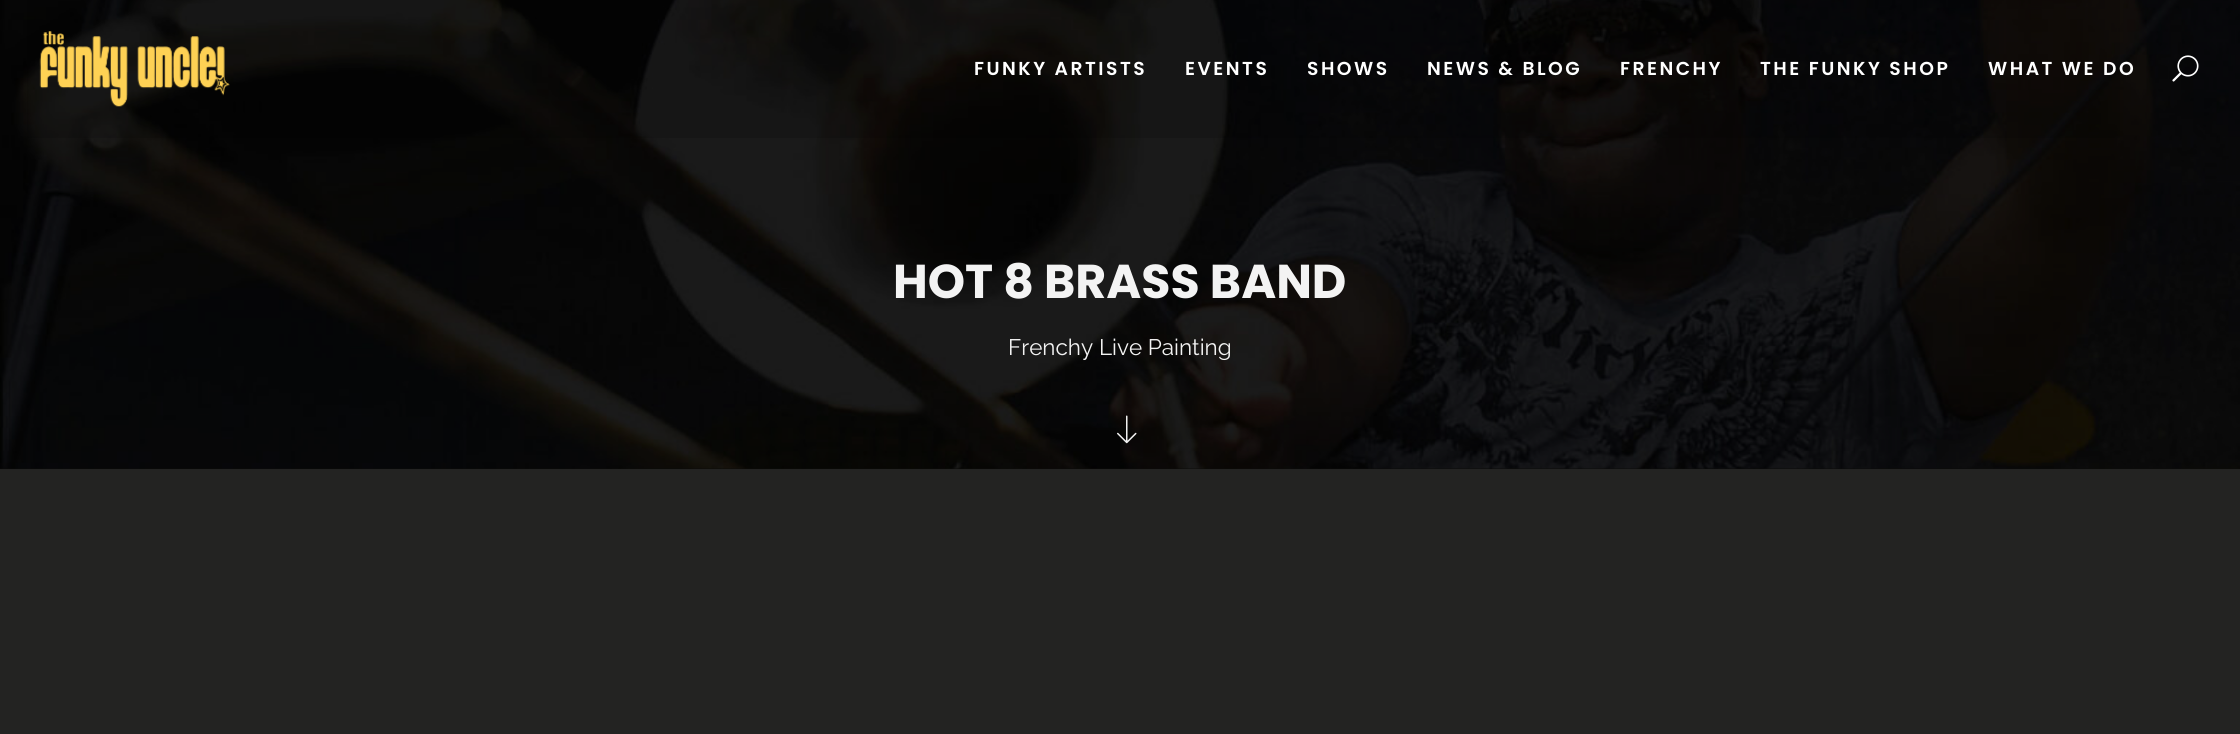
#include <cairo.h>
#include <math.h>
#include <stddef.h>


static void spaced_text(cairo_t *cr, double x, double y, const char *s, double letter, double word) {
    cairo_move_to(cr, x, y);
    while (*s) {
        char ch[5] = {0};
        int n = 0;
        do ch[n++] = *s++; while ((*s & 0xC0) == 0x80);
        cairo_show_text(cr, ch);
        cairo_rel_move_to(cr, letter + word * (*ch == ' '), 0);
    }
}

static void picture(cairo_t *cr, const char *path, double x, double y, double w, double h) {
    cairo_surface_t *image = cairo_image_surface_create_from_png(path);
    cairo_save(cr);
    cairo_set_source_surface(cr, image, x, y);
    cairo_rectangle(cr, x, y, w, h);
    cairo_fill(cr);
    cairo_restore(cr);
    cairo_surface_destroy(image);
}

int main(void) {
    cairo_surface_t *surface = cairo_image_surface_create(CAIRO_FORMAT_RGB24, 2240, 734);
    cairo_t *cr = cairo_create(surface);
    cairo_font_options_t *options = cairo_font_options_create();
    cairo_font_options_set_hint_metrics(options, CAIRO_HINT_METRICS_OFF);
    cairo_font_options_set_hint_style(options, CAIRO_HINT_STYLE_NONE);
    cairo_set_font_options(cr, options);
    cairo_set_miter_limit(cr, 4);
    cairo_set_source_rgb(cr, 0.043, 0.043, 0.039);
    cairo_paint(cr);
    picture(cr, "img3.png", 0, 0, 2240, 469);
    cairo_set_source_rgba(cr, 0, 0, 0, 0.14);
    cairo_rectangle(cr, 27, 0, 2093, 138);
    cairo_fill(cr);
    picture(cr, "img1.png", 39, 31, 191, 76);
    cairo_select_font_face(cr, "Poppins SemiBold", CAIRO_FONT_SLANT_NORMAL, CAIRO_FONT_WEIGHT_NORMAL);
    cairo_set_font_size(cr, 18.75);
    cairo_set_source_rgb(cr, 1, 1, 1);
    spaced_text(cr, 974, 75, "FUNKY ARTISTS", 2.5, 0);
    spaced_text(cr, 1185, 75, "EVENTS", 2.5, 0);
    spaced_text(cr, 1307, 75, "SHOWS", 2.5, 0);
    spaced_text(cr, 1427, 75, "NEWS & BLOG", 2.5, 0);
    spaced_text(cr, 1620, 75, "FRENCHY", 2.5, 0);
    spaced_text(cr, 1760, 75, "THE FUNKY SHOP", 2.5, 0);
    spaced_text(cr, 1988, 75, "WHAT WE DO", 2.5, 0);
    picture(cr, "img2.png", 2172, 55, 27, 27);
    cairo_select_font_face(cr, "Poppins", CAIRO_FONT_SLANT_NORMAL, CAIRO_FONT_WEIGHT_BOLD);
    cairo_set_font_size(cr, 47.5);
    cairo_set_source_rgb(cr, 0.953, 0.953, 0.953);
    cairo_move_to(cr, 893, 298);
    cairo_show_text(cr, "HOT 8 BRASS BAND");
    cairo_select_font_face(cr, "Raleway", CAIRO_FONT_SLANT_NORMAL, CAIRO_FONT_WEIGHT_NORMAL);
    cairo_set_font_size(cr, 22.5);
    cairo_move_to(cr, 1008, 355);
    cairo_show_text(cr, "Frenchy Live Painting");
    picture(cr, "img4.png", 1117, 415, 20, 29);
    cairo_set_source_rgb(cr, 0.137, 0.137, 0.133);
    cairo_rectangle(cr, 0, 469, 2240, 265);
    cairo_fill(cr);
    cairo_surface_write_to_png(surface, "page.png");
    cairo_font_options_destroy(options);
    cairo_destroy(cr);
    cairo_surface_destroy(surface);
    return 0;
}
